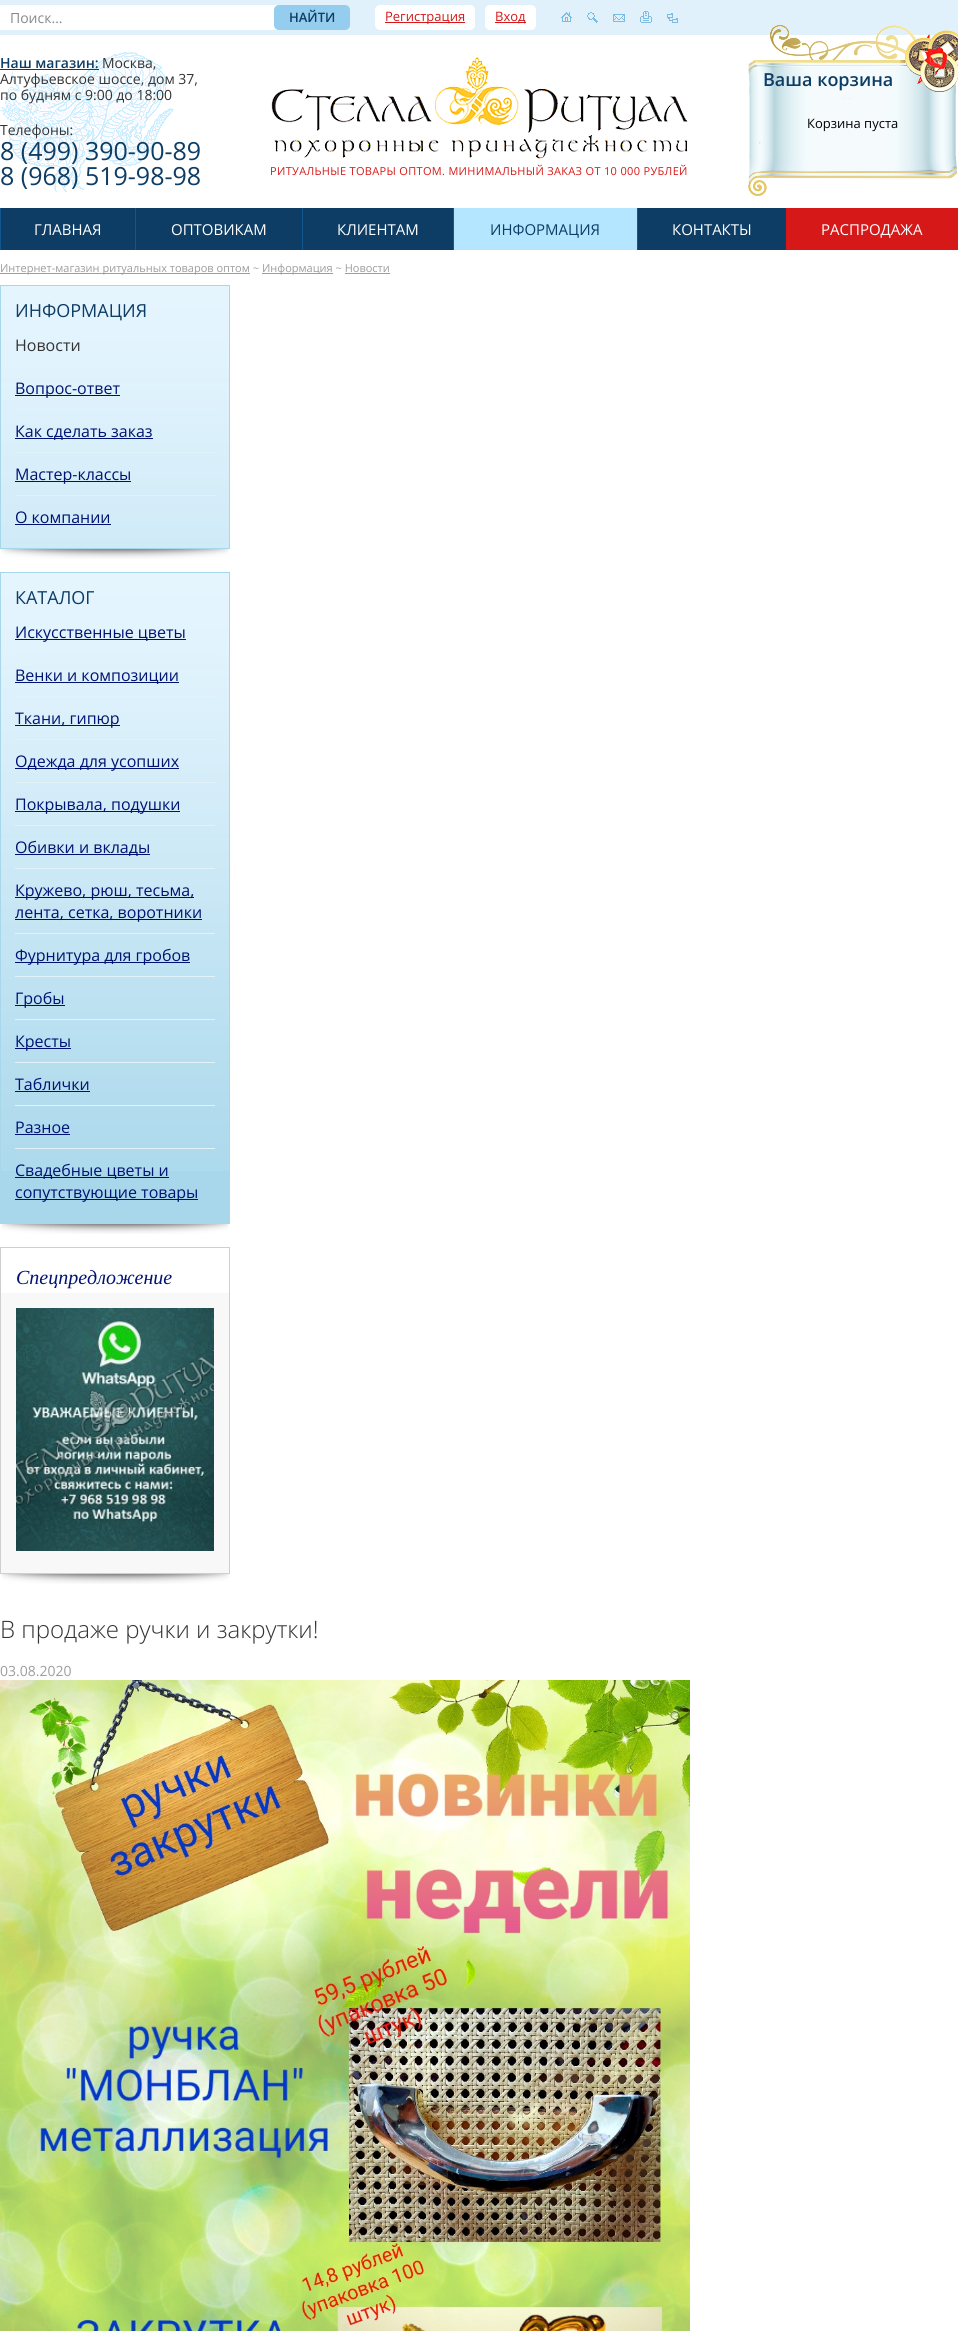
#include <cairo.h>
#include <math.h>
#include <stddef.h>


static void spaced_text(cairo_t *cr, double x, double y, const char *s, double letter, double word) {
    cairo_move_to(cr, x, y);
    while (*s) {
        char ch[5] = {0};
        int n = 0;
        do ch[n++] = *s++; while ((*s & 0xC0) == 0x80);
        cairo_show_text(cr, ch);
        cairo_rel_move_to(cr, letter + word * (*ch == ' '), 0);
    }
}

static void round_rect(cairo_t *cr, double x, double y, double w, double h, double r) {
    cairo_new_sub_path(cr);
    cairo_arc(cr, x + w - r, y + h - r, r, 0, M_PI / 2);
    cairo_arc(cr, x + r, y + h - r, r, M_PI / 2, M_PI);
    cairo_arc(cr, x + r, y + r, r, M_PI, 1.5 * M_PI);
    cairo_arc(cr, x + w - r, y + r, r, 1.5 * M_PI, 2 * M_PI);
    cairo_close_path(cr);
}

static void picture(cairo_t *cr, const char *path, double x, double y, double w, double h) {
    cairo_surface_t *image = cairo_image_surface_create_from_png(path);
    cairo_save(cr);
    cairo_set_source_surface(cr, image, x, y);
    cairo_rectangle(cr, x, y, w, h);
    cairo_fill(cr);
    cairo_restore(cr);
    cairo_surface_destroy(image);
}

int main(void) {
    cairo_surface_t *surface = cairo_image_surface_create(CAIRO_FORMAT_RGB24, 958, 2331);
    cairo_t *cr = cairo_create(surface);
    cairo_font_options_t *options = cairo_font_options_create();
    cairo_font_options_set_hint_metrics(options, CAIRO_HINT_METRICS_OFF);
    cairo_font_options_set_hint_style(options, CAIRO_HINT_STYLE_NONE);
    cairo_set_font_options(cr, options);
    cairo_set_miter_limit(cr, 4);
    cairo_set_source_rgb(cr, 1, 1, 1);
    cairo_paint(cr);
    cairo_set_source_rgb(cr, 0.878, 0.945, 0.984);
    cairo_rectangle(cr, 0, 0, 958, 35);
    cairo_fill(cr);
    cairo_set_source_rgb(cr, 1, 1, 1);
    cairo_new_path(cr);
    cairo_move_to(cr, 0, 5);
    cairo_line_to(cr, 342, 5);
    cairo_curve_to(cr, 346.5, 5, 350, 8.5, 350, 13);
    cairo_line_to(cr, 350, 22);
    cairo_curve_to(cr, 350, 26.5, 346.5, 30, 342, 30);
    cairo_line_to(cr, 0, 30);
    cairo_close_path(cr);
    cairo_fill(cr);
    cairo_select_font_face(cr, "Open Sans", CAIRO_FONT_SLANT_NORMAL, CAIRO_FONT_WEIGHT_NORMAL);
    cairo_set_font_size(cr, 14);
    cairo_set_source_rgb(cr, 0.533, 0.533, 0.533);
    cairo_move_to(cr, 10, 23);
    cairo_show_text(cr, "Поиск...");
    cairo_set_source_rgb(cr, 0.584, 0.804, 0.933);
    round_rect(cr, 274, 5, 76, 25, 5);
    cairo_fill(cr);
    cairo_select_font_face(cr, "Open Sans SemiBold", CAIRO_FONT_SLANT_NORMAL, CAIRO_FONT_WEIGHT_NORMAL);
    cairo_set_font_size(cr, 13);
    cairo_set_source_rgb(cr, 0.051, 0.235, 0.392);
    cairo_move_to(cr, 289, 22);
    cairo_show_text(cr, "НАЙТИ");
    cairo_set_source_rgb(cr, 1, 1, 1);
    round_rect(cr, 375, 5, 100, 25, 5);
    cairo_fill(cr);
    cairo_set_source_rgb(cr, 0.843, 0.094, 0.094);
    cairo_rectangle(cr, 385, 22, 80, 1);
    cairo_fill(cr);
    cairo_select_font_face(cr, "Open Sans", CAIRO_FONT_SLANT_NORMAL, CAIRO_FONT_WEIGHT_NORMAL);
    cairo_move_to(cr, 385, 21);
    cairo_show_text(cr, "Регистрация");
    cairo_set_source_rgb(cr, 1, 1, 1);
    round_rect(cr, 485, 5, 51, 25, 5);
    cairo_fill(cr);
    cairo_set_source_rgb(cr, 0.843, 0.094, 0.094);
    cairo_rectangle(cr, 495, 22, 31, 1);
    cairo_fill(cr);
    cairo_move_to(cr, 495, 21);
    cairo_show_text(cr, "Вход");
    picture(cr, "img1.png", 561, 12, 11, 10);
    picture(cr, "img2.png", 587, 12, 11, 11);
    picture(cr, "img3.png", 613, 14, 12, 8);
    picture(cr, "img4.png", 640, 11, 12, 12);
    picture(cr, "img5.png", 667, 13, 11, 10);
    picture(cr, "img6.png", 0, 52, 174, 140);
    cairo_select_font_face(cr, "Open Sans SemiBold", CAIRO_FONT_SLANT_NORMAL, CAIRO_FONT_WEIGHT_NORMAL);
    cairo_set_font_size(cr, 14);
    cairo_set_source_rgb(cr, 0.051, 0.235, 0.392);
    cairo_move_to(cr, 0, 68);
    cairo_show_text(cr, "Наш магазин:");
    cairo_rectangle(cr, 0, 69, 99, 1);
    cairo_fill(cr);
    cairo_select_font_face(cr, "Open Sans", CAIRO_FONT_SLANT_NORMAL, CAIRO_FONT_WEIGHT_NORMAL);
    cairo_set_source_rgb(cr, 0.2, 0.2, 0.2);
    cairo_move_to(cr, 102, 68);
    cairo_show_text(cr, "Москва,");
    cairo_move_to(cr, 0, 84);
    cairo_show_text(cr, "Алтуфьевское шоссе, дом 37,");
    cairo_move_to(cr, 0, 100);
    cairo_show_text(cr, "по будням c 9:00 до 18:00");
    cairo_move_to(cr, 0, 135);
    cairo_show_text(cr, "Телефоны:");
    cairo_set_font_size(cr, 25);
    cairo_set_source_rgb(cr, 0.051, 0.235, 0.392);
    cairo_move_to(cr, 0, 160);
    cairo_show_text(cr, "8 (499) 390-90-89");
    cairo_move_to(cr, 0, 185);
    cairo_show_text(cr, "8 (968) 519-98-98");
    picture(cr, "img7.png", 748, 25, 210, 171);
    cairo_select_font_face(cr, "Open Sans SemiBold", CAIRO_FONT_SLANT_NORMAL, CAIRO_FONT_WEIGHT_NORMAL);
    cairo_set_font_size(cr, 18);
    cairo_move_to(cr, 763, 86);
    cairo_show_text(cr, "Ваша корзина");
    cairo_select_font_face(cr, "Open Sans", CAIRO_FONT_SLANT_NORMAL, CAIRO_FONT_WEIGHT_NORMAL);
    cairo_set_font_size(cr, 13);
    cairo_set_source_rgb(cr, 0, 0, 0);
    cairo_move_to(cr, 807, 128);
    cairo_show_text(cr, "Корзина пуста");
    picture(cr, "img8.png", 271, 57, 417, 102);
    cairo_set_font_size(cr, 11);
    cairo_set_source_rgb(cr, 0.843, 0.094, 0.094);
    spaced_text(cr, 270, 175, "РИТУАЛЬНЫЕ ТОВАРЫ ОПТОМ. МИНИМАЛЬНЫЙ ЗАКАЗ ОТ 10 000 РУБЛЕЙ", 0.33, 0);
    cairo_set_source_rgb(cr, 0.051, 0.235, 0.392);
    cairo_rectangle(cr, 1, 208, 785, 42);
    cairo_fill(cr);
    cairo_set_source_rgb(cr, 0.075, 0.337, 0.557);
    cairo_rectangle(cr, 0, 208, 1, 42);
    cairo_fill(cr);
    cairo_set_font_size(cr, 15);
    cairo_set_source_rgb(cr, 1, 1, 1);
    cairo_move_to(cr, 34, 235);
    cairo_show_text(cr, "ГЛАВНАЯ");
    cairo_set_source_rgb(cr, 0.075, 0.337, 0.557);
    cairo_rectangle(cr, 135, 208, 1, 42);
    cairo_fill(cr);
    cairo_set_source_rgb(cr, 1, 1, 1);
    cairo_move_to(cr, 171, 235);
    cairo_show_text(cr, "ОПТОВИКАМ");
    cairo_set_source_rgb(cr, 0.075, 0.337, 0.557);
    cairo_rectangle(cr, 302, 208, 1, 42);
    cairo_fill(cr);
    cairo_set_source_rgb(cr, 1, 1, 1);
    cairo_move_to(cr, 337, 235);
    cairo_show_text(cr, "КЛИЕНТАМ");
    cairo_set_source_rgb(cr, 0.075, 0.337, 0.557);
    cairo_rectangle(cr, 453, 208, 1, 42);
    cairo_fill(cr);
    cairo_set_source_rgb(cr, 0.706, 0.906, 1);
    cairo_rectangle(cr, 454, 208, 183, 42);
    cairo_fill(cr);
    cairo_set_source_rgb(cr, 0.051, 0.235, 0.392);
    cairo_move_to(cr, 490, 235);
    cairo_show_text(cr, "ИНФОРМАЦИЯ");
    cairo_set_source_rgb(cr, 0.075, 0.337, 0.557);
    cairo_rectangle(cr, 637, 208, 1, 42);
    cairo_fill(cr);
    cairo_set_source_rgb(cr, 1, 1, 1);
    cairo_move_to(cr, 672, 235);
    cairo_show_text(cr, "КОНТАКТЫ");
    cairo_set_source_rgb(cr, 0.843, 0.094, 0.094);
    cairo_rectangle(cr, 786, 208, 172, 42);
    cairo_fill(cr);
    cairo_set_source_rgb(cr, 1, 1, 1);
    cairo_move_to(cr, 821, 235);
    cairo_show_text(cr, "РАСПРОДАЖА");
    cairo_set_source_rgb(cr, 0.62, 0.616, 0.616);
    cairo_rectangle(cr, 0, 273, 250, 1);
    cairo_fill(cr);
    cairo_set_font_size(cr, 11);
    cairo_move_to(cr, 0, 272);
    cairo_show_text(cr, "Интернет-магазин ритуальных товаров оптом ~");
    cairo_rectangle(cr, 262, 273, 71, 1);
    cairo_fill(cr);
    cairo_move_to(cr, 262, 272);
    cairo_show_text(cr, "Информация ~ Новости");
    cairo_rectangle(cr, 345, 273, 45, 1);
    cairo_fill(cr);
    picture(cr, "img9.png", 1, 549, 228, 10);
    picture(cr, "img10.png", 1, 286, 228, 262);
    cairo_rectangle(cr, 0.5, 285.5, 229, 263);
    cairo_set_source_rgb(cr, 0.659, 0.843, 0.922);
    cairo_set_line_width(cr, 1);
    cairo_stroke(cr);
    cairo_set_font_size(cr, 18);
    cairo_set_source_rgb(cr, 0.051, 0.235, 0.392);
    cairo_move_to(cr, 15, 317);
    cairo_show_text(cr, "ИНФОРМАЦИЯ");
    cairo_set_source_rgb(cr, 0.882, 0.949, 0.976);
    cairo_rectangle(cr, 15, 366, 200, 1);
    cairo_fill(cr);
    cairo_set_font_size(cr, 16);
    cairo_set_source_rgb(cr, 0.2, 0.2, 0.2);
    cairo_move_to(cr, 15, 351);
    cairo_show_text(cr, "Новости");
    cairo_set_source_rgb(cr, 0.882, 0.949, 0.976);
    cairo_rectangle(cr, 15, 409, 200, 1);
    cairo_fill(cr);
    cairo_set_source_rgb(cr, 0, 0.075, 0.451);
    cairo_rectangle(cr, 15, 395, 105, 1);
    cairo_fill(cr);
    cairo_move_to(cr, 15, 394);
    cairo_show_text(cr, "Вопрос-ответ");
    cairo_set_source_rgb(cr, 0.882, 0.949, 0.976);
    cairo_rectangle(cr, 15, 452, 200, 1);
    cairo_fill(cr);
    cairo_set_source_rgb(cr, 0, 0.075, 0.451);
    cairo_rectangle(cr, 15, 438, 138, 1);
    cairo_fill(cr);
    cairo_move_to(cr, 15, 437);
    cairo_show_text(cr, "Как сделать заказ");
    cairo_set_source_rgb(cr, 0.882, 0.949, 0.976);
    cairo_rectangle(cr, 15, 495, 200, 1);
    cairo_fill(cr);
    cairo_set_source_rgb(cr, 0, 0.075, 0.451);
    cairo_rectangle(cr, 15, 481, 116, 1);
    cairo_fill(cr);
    cairo_move_to(cr, 15, 480);
    cairo_show_text(cr, "Мастер-классы");
    cairo_move_to(cr, 15, 523);
    cairo_show_text(cr, "О компании");
    cairo_rectangle(cr, 15, 524, 96, 1);
    cairo_fill(cr);
    picture(cr, "img9.png", 1, 1224, 228, 10);
    cairo_set_source_rgb(cr, 0.659, 0.843, 0.922);
    cairo_rectangle(cr, 1, 1171, 228, 52);
    cairo_fill(cr);
    picture(cr, "img11.png", 1, 573, 228, 598);
    cairo_rectangle(cr, 0.5, 572.5, 229, 651);
    cairo_stroke(cr);
    cairo_set_font_size(cr, 18);
    cairo_set_source_rgb(cr, 0.051, 0.235, 0.392);
    cairo_move_to(cr, 15, 604);
    cairo_show_text(cr, "КАТАЛОГ");
    cairo_set_source_rgb(cr, 0.882, 0.949, 0.976);
    cairo_rectangle(cr, 15, 653, 200, 1);
    cairo_fill(cr);
    cairo_set_source_rgb(cr, 0, 0.075, 0.451);
    cairo_rectangle(cr, 15, 639, 171, 1);
    cairo_fill(cr);
    cairo_set_font_size(cr, 16);
    cairo_move_to(cr, 15, 638);
    cairo_show_text(cr, "Искусственные цветы");
    cairo_set_source_rgb(cr, 0.882, 0.949, 0.976);
    cairo_rectangle(cr, 15, 696, 200, 1);
    cairo_fill(cr);
    cairo_set_source_rgb(cr, 0, 0.075, 0.451);
    cairo_rectangle(cr, 15, 682, 164, 1);
    cairo_fill(cr);
    cairo_move_to(cr, 15, 681);
    cairo_show_text(cr, "Венки и композиции");
    cairo_set_source_rgb(cr, 0.882, 0.949, 0.976);
    cairo_rectangle(cr, 15, 739, 200, 1);
    cairo_fill(cr);
    cairo_set_source_rgb(cr, 0, 0.075, 0.451);
    cairo_rectangle(cr, 15, 725, 105, 1);
    cairo_fill(cr);
    cairo_move_to(cr, 15, 724);
    cairo_show_text(cr, "Ткани, гипюр");
    cairo_set_source_rgb(cr, 0.882, 0.949, 0.976);
    cairo_rectangle(cr, 15, 782, 200, 1);
    cairo_fill(cr);
    cairo_set_source_rgb(cr, 0, 0.075, 0.451);
    cairo_rectangle(cr, 15, 768, 164, 1);
    cairo_fill(cr);
    cairo_move_to(cr, 15, 767);
    cairo_show_text(cr, "Одежда для усопших");
    cairo_set_source_rgb(cr, 0.882, 0.949, 0.976);
    cairo_rectangle(cr, 15, 825, 200, 1);
    cairo_fill(cr);
    cairo_set_source_rgb(cr, 0, 0.075, 0.451);
    cairo_rectangle(cr, 15, 811, 165, 1);
    cairo_fill(cr);
    cairo_move_to(cr, 15, 810);
    cairo_show_text(cr, "Покрывала, подушки");
    cairo_set_source_rgb(cr, 0.882, 0.949, 0.976);
    cairo_rectangle(cr, 15, 868, 200, 1);
    cairo_fill(cr);
    cairo_set_source_rgb(cr, 0, 0.075, 0.451);
    cairo_rectangle(cr, 15, 854, 135, 1);
    cairo_fill(cr);
    cairo_move_to(cr, 15, 853);
    cairo_show_text(cr, "Обивки и вклады");
    cairo_set_source_rgb(cr, 0.882, 0.949, 0.976);
    cairo_rectangle(cr, 15, 933, 200, 1);
    cairo_fill(cr);
    cairo_set_source_rgb(cr, 0, 0.075, 0.451);
    cairo_rectangle(cr, 15, 897, 179, 1);
    cairo_fill(cr);
    cairo_move_to(cr, 15, 896);
    cairo_show_text(cr, "Кружево, рюш, тесьма,");
    cairo_rectangle(cr, 15, 919, 187, 1);
    cairo_fill(cr);
    cairo_move_to(cr, 15, 918);
    cairo_show_text(cr, "лента, сетка, воротники");
    cairo_set_source_rgb(cr, 0.882, 0.949, 0.976);
    cairo_rectangle(cr, 15, 976, 200, 1);
    cairo_fill(cr);
    cairo_set_source_rgb(cr, 0, 0.075, 0.451);
    cairo_rectangle(cr, 15, 962, 175, 1);
    cairo_fill(cr);
    cairo_move_to(cr, 15, 961);
    cairo_show_text(cr, "Фурнитура для гробов");
    cairo_set_source_rgb(cr, 0.882, 0.949, 0.976);
    cairo_rectangle(cr, 15, 1019, 200, 1);
    cairo_fill(cr);
    cairo_set_source_rgb(cr, 0, 0.075, 0.451);
    cairo_rectangle(cr, 15, 1005, 50, 1);
    cairo_fill(cr);
    cairo_move_to(cr, 15, 1004);
    cairo_show_text(cr, "Гробы");
    cairo_set_source_rgb(cr, 0.882, 0.949, 0.976);
    cairo_rectangle(cr, 15, 1062, 200, 1);
    cairo_fill(cr);
    cairo_set_source_rgb(cr, 0, 0.075, 0.451);
    cairo_rectangle(cr, 15, 1048, 56, 1);
    cairo_fill(cr);
    cairo_move_to(cr, 15, 1047);
    cairo_show_text(cr, "Кресты");
    cairo_set_source_rgb(cr, 0.882, 0.949, 0.976);
    cairo_rectangle(cr, 15, 1105, 200, 1);
    cairo_fill(cr);
    cairo_set_source_rgb(cr, 0, 0.075, 0.451);
    cairo_move_to(cr, 15, 1090);
    cairo_show_text(cr, "Таблички");
    cairo_rectangle(cr, 15, 1091, 75, 1);
    cairo_fill(cr);
    cairo_set_source_rgb(cr, 0.882, 0.949, 0.976);
    cairo_rectangle(cr, 15, 1148, 200, 1);
    cairo_fill(cr);
    cairo_set_source_rgb(cr, 0, 0.075, 0.451);
    cairo_move_to(cr, 15, 1133);
    cairo_show_text(cr, "Разное");
    cairo_rectangle(cr, 15, 1134, 55, 1);
    cairo_fill(cr);
    cairo_rectangle(cr, 15, 1177, 154, 1);
    cairo_fill(cr);
    cairo_move_to(cr, 15, 1176);
    cairo_show_text(cr, "Свадебные цветы и");
    cairo_rectangle(cr, 15, 1199, 183, 1);
    cairo_fill(cr);
    cairo_move_to(cr, 15, 1198);
    cairo_show_text(cr, "сопутствующие товары");
    picture(cr, "img9.png", 1, 1574, 228, 10);
    cairo_set_source_rgb(cr, 0.969, 0.969, 0.969);
    cairo_rectangle(cr, 1, 1293, 228, 280);
    cairo_fill(cr);
    cairo_rectangle(cr, 0.5, 1247.5, 229, 326);
    cairo_set_source_rgb(cr, 0.812, 0.812, 0.812);
    cairo_stroke(cr);
    cairo_select_font_face(cr, "Liberation Serif", CAIRO_FONT_SLANT_ITALIC, CAIRO_FONT_WEIGHT_NORMAL);
    cairo_set_font_size(cr, 20);
    cairo_set_source_rgb(cr, 0, 0.075, 0.451);
    cairo_move_to(cr, 16, 1284);
    cairo_show_text(cr, "Спецпредложение");
    picture(cr, "img12.png", 16, 1308, 198, 243);
    cairo_select_font_face(cr, "Open Sans Light", CAIRO_FONT_SLANT_NORMAL, CAIRO_FONT_WEIGHT_NORMAL);
    cairo_set_font_size(cr, 24);
    cairo_set_source_rgb(cr, 0.2, 0.2, 0.2);
    cairo_move_to(cr, 0, 1638);
    cairo_show_text(cr, "В продаже ручки и закрутки!");
    cairo_select_font_face(cr, "Open Sans", CAIRO_FONT_SLANT_NORMAL, CAIRO_FONT_WEIGHT_NORMAL);
    cairo_set_font_size(cr, 14);
    cairo_set_source_rgb(cr, 0.62, 0.616, 0.616);
    cairo_move_to(cr, 0, 1676);
    cairo_show_text(cr, "03.08.2020");
    picture(cr, "img13.png", 0, 1680, 690, 651);
    cairo_surface_write_to_png(surface, "page.png");
    cairo_font_options_destroy(options);
    cairo_destroy(cr);
    cairo_surface_destroy(surface);
    return 0;
}
